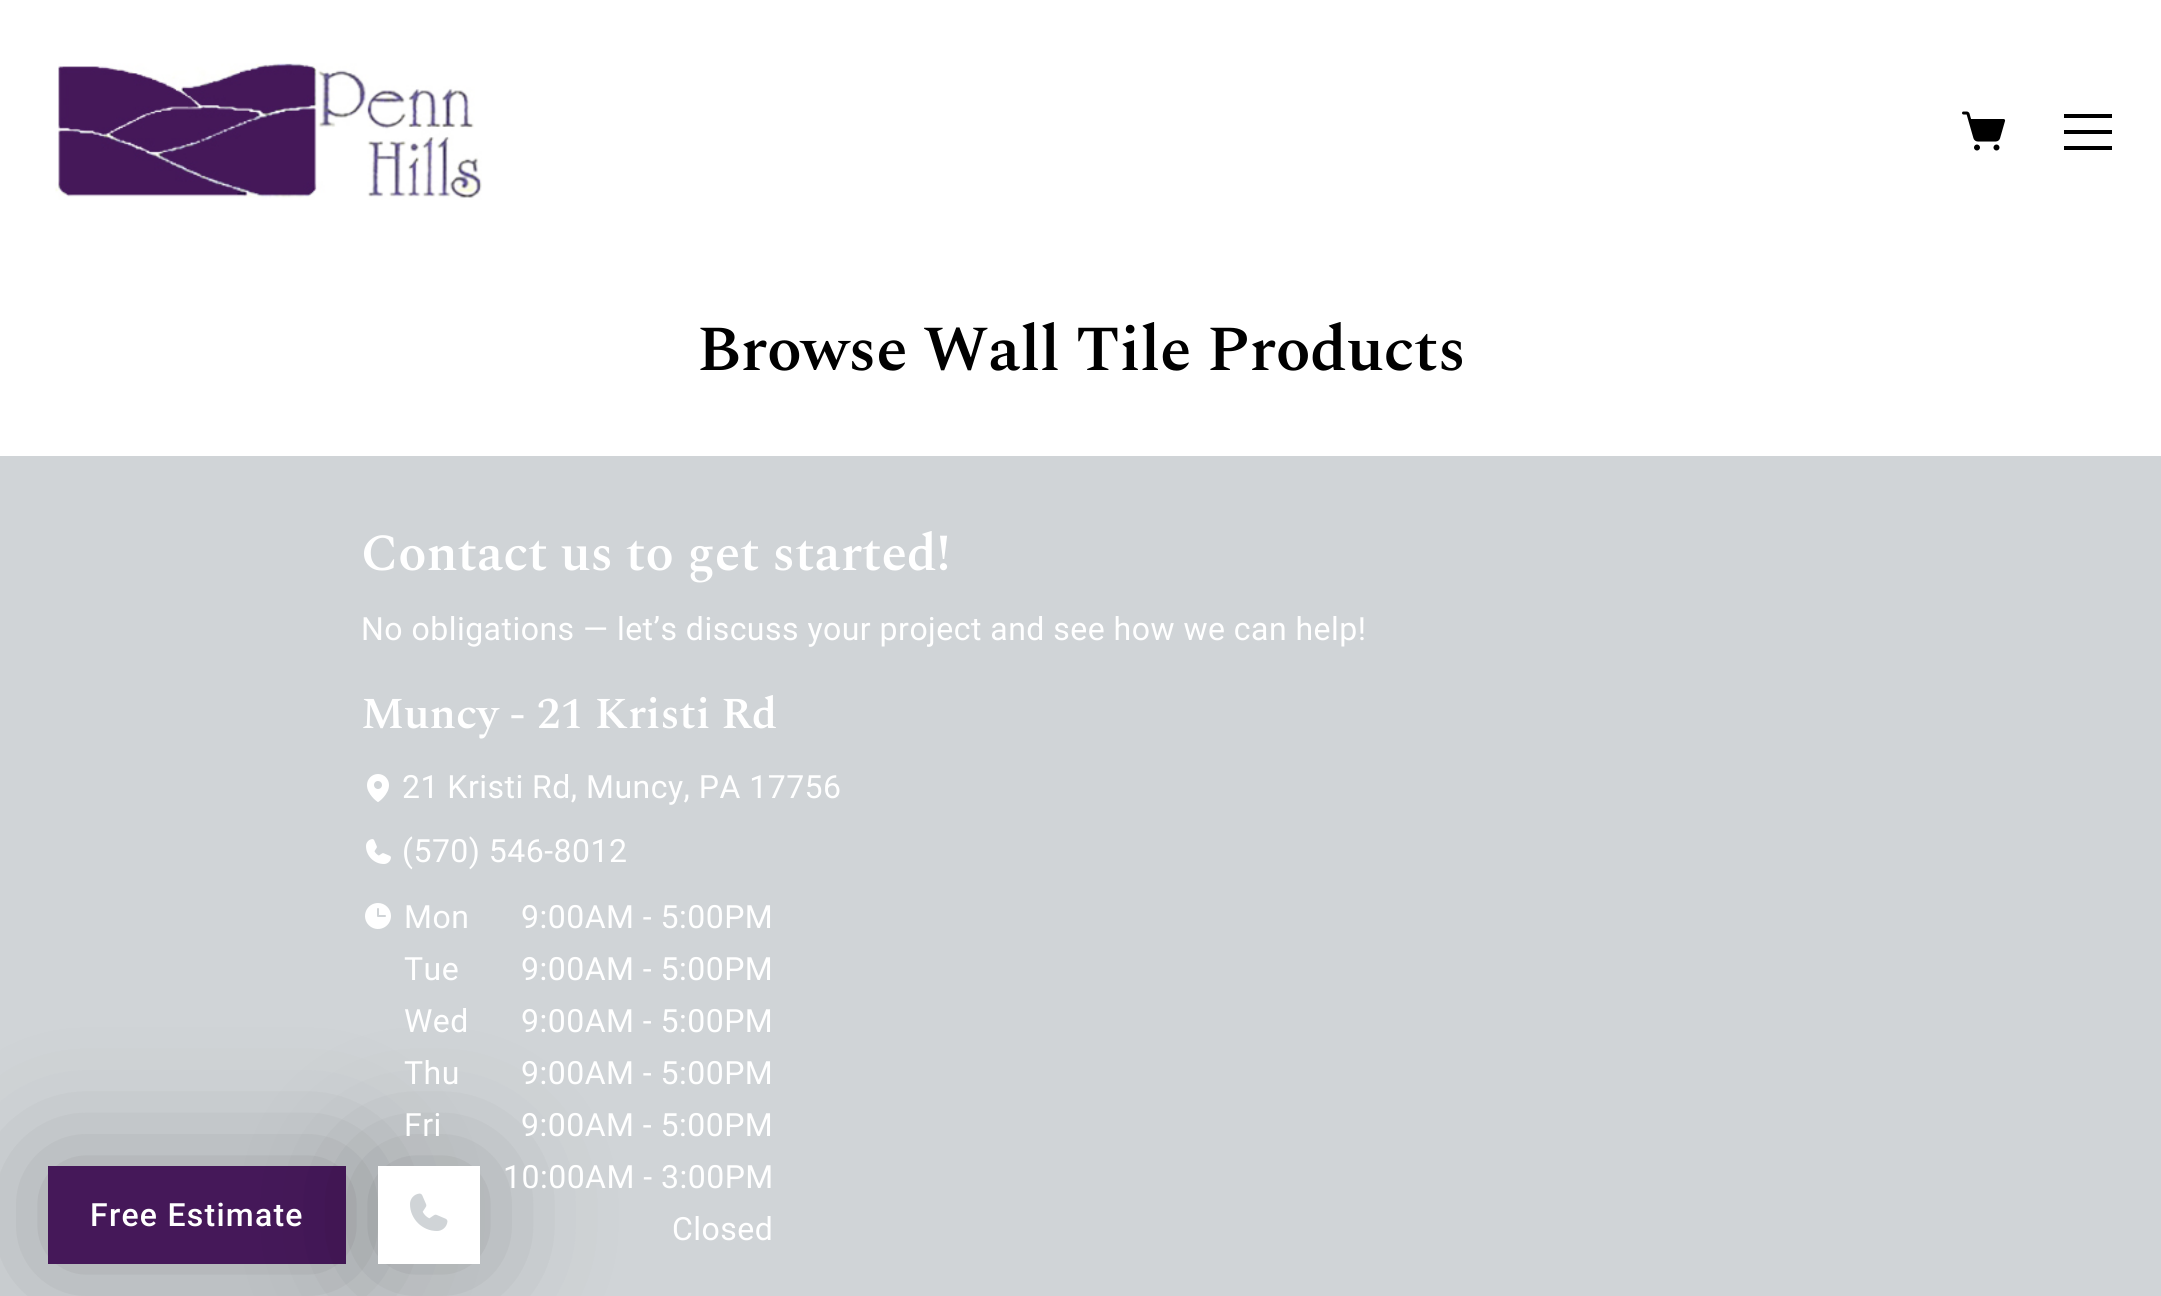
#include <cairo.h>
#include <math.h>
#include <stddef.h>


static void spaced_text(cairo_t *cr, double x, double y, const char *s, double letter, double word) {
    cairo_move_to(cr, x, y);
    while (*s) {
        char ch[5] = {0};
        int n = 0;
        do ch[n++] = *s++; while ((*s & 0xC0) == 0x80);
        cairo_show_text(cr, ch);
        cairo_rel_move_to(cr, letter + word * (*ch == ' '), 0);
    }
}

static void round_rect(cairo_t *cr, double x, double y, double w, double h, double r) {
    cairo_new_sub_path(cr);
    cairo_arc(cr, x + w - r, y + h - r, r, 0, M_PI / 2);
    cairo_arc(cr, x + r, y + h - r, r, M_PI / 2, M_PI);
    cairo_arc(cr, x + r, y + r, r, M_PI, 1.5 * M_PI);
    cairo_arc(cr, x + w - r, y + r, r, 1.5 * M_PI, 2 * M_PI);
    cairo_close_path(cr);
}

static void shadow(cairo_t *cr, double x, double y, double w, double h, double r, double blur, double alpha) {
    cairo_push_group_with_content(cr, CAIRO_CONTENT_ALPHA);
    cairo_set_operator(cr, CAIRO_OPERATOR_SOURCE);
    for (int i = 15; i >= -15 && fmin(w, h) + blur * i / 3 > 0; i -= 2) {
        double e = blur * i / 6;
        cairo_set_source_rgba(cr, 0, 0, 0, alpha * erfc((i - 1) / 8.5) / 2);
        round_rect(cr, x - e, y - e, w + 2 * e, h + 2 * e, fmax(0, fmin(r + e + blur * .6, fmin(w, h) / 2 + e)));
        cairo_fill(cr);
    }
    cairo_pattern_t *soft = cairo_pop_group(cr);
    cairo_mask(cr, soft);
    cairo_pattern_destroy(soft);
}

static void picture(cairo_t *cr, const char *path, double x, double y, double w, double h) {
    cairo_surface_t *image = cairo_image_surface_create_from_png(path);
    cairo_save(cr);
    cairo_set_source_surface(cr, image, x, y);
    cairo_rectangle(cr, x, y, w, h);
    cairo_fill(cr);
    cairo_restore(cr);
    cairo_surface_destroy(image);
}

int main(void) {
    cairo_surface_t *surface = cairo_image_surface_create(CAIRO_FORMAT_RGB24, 2161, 1296);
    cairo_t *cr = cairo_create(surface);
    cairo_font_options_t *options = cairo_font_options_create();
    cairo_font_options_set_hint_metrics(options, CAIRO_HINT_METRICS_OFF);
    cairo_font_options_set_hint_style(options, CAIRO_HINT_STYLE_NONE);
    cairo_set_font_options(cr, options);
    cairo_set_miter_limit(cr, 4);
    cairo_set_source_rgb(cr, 1, 1, 1);
    cairo_paint(cr);
    picture(cr, "img1.png", 55, 63, 427, 137);
    picture(cr, "img2.png", 1962, 111, 44, 40);
    cairo_set_source_rgb(cr, 0, 0, 0);
    cairo_rectangle(cr, 2064, 130, 48, 4);
    cairo_fill(cr);
    cairo_rectangle(cr, 2064, 114, 48, 4);
    cairo_fill(cr);
    cairo_rectangle(cr, 2064, 146, 48, 4);
    cairo_fill(cr);
    cairo_set_source_rgb(cr, 0.816, 0.831, 0.843);
    cairo_rectangle(cr, 0, 456, 2161, 840);
    cairo_fill(cr);
    cairo_set_source_rgb(cr, 0, 0, 0);
    shadow(cr, 48, 1166, 298, 98, 0, 64, 0.25);
    cairo_set_source_rgb(cr, 0.271, 0.094, 0.349);
    cairo_rectangle(cr, 48, 1166, 298, 98);
    cairo_fill(cr);
    cairo_set_source_rgb(cr, 0, 0, 0);
    shadow(cr, 378, 1166, 102, 98, 0, 64, 0.25);
    cairo_set_source_rgb(cr, 1, 1, 1);
    cairo_rectangle(cr, 378, 1166, 102, 98);
    cairo_fill(cr);
    picture(cr, "img3.png", 410, 1193, 38, 38);
    cairo_select_font_face(cr, "Roboto Medium", CAIRO_FONT_SLANT_NORMAL, CAIRO_FONT_WEIGHT_NORMAL);
    cairo_set_font_size(cr, 32);
    spaced_text(cr, 90, 1226, "Free Estimate", 1.25, 0);
    cairo_select_font_face(cr, "Spectral SemiBold", CAIRO_FONT_SLANT_NORMAL, CAIRO_FONT_WEIGHT_NORMAL);
    cairo_set_font_size(cr, 64);
    cairo_set_source_rgb(cr, 0, 0, 0);
    spaced_text(cr, 697, 370, "Browse Wall Tile Products", -0.2, 0);
    cairo_set_font_size(cr, 52);
    cairo_set_source_rgb(cr, 1, 1, 1);
    spaced_text(cr, 361, 570, "Contact us to get started!", -0.05, 0);
    cairo_select_font_face(cr, "Roboto", CAIRO_FONT_SLANT_NORMAL, CAIRO_FONT_WEIGHT_NORMAL);
    cairo_set_font_size(cr, 32);
    spaced_text(cr, 361, 640, "No obligations — let’s discuss your project and see how we can help!", 0.48, 0);
    cairo_select_font_face(cr, "Spectral SemiBold", CAIRO_FONT_SLANT_NORMAL, CAIRO_FONT_WEIGHT_NORMAL);
    cairo_set_font_size(cr, 44);
    cairo_move_to(cr, 361, 728);
    cairo_show_text(cr, "Muncy - 21 Kristi Rd");
    picture(cr, "img4.png", 367, 774, 22, 28);
    cairo_select_font_face(cr, "Roboto", CAIRO_FONT_SLANT_NORMAL, CAIRO_FONT_WEIGHT_NORMAL);
    cairo_set_font_size(cr, 32);
    spaced_text(cr, 402, 798, "21 Kristi Rd, Muncy, PA 17756", 0.48, 0);
    picture(cr, "img5.png", 366, 839, 25, 25);
    spaced_text(cr, 402, 862, "(570) 546-8012", 0.48, 0);
    picture(cr, "img6.png", 365, 903, 26, 26);
    spaced_text(cr, 404, 928, "Mon", 0.48, 0);
    spaced_text(cr, 521, 928, "9:00AM - 5:00PM", 0.48, 0);
    spaced_text(cr, 404, 980, "Tue", 0.48, 0);
    spaced_text(cr, 521, 980, "9:00AM - 5:00PM", 0.48, 0);
    spaced_text(cr, 404, 1032, "Wed", 0.48, 0);
    spaced_text(cr, 521, 1032, "9:00AM - 5:00PM", 0.48, 0);
    spaced_text(cr, 404, 1084, "Thu", 0.48, 0);
    spaced_text(cr, 521, 1084, "9:00AM - 5:00PM", 0.48, 0);
    spaced_text(cr, 404, 1136, "Fri", 0.48, 0);
    spaced_text(cr, 521, 1136, "9:00AM - 5:00PM", 0.48, 0);
    spaced_text(cr, 503, 1188, "10:00AM - 3:00PM", 0.48, 0);
    spaced_text(cr, 672, 1240, "Closed", 0.48, 0);
    cairo_surface_write_to_png(surface, "page.png");
    cairo_font_options_destroy(options);
    cairo_destroy(cr);
    cairo_surface_destroy(surface);
    return 0;
}
